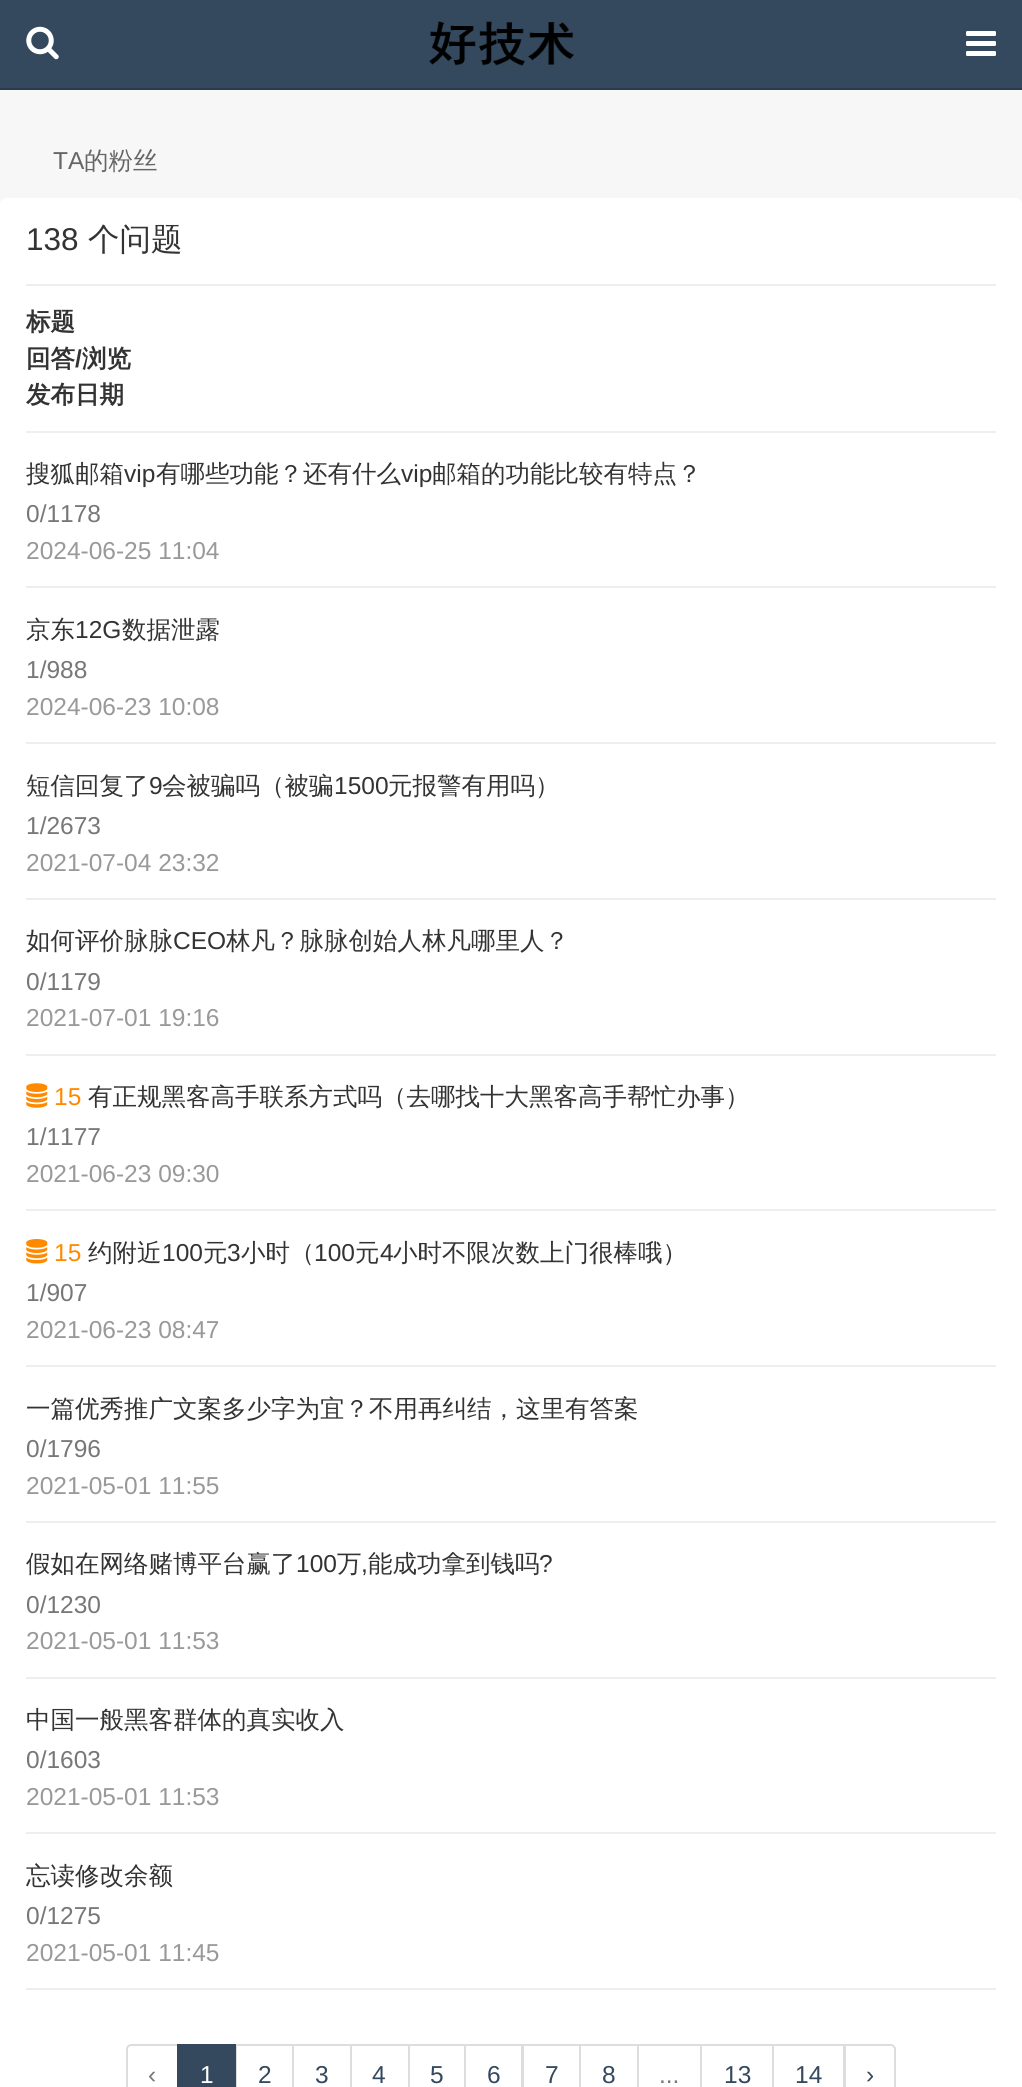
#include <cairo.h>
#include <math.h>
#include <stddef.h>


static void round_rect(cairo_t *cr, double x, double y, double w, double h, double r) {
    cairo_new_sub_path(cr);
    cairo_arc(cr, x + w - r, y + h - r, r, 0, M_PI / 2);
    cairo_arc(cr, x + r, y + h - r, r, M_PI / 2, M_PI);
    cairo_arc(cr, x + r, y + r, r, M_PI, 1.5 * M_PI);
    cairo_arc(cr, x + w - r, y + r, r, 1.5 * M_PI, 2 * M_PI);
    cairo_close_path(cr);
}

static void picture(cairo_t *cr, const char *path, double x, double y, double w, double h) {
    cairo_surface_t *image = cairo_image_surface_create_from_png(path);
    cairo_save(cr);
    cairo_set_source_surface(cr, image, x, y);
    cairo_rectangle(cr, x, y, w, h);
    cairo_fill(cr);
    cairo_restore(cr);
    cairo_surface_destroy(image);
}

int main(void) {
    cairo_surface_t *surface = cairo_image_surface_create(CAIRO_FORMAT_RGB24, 1022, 2087);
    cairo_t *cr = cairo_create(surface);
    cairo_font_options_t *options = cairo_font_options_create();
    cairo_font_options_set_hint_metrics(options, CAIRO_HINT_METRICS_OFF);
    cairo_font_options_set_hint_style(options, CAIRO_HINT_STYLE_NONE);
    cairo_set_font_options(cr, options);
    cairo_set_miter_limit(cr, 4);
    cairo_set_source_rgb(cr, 0.965, 0.965, 0.965);
    cairo_paint(cr);
    cairo_set_source_rgb(cr, 0.204, 0.286, 0.369);
    cairo_rectangle(cr, 0, 0, 1022, 88);
    cairo_fill(cr);
    cairo_set_source_rgb(cr, 0.165, 0.231, 0.298);
    cairo_rectangle(cr, 0, 88, 1022, 2);
    cairo_fill(cr);
    picture(cr, "img1.png", 26, 26, 33, 34);
    picture(cr, "img2.png", 429, 21, 145, 45);
    picture(cr, "img3.png", 966, 31, 30, 25);
    cairo_select_font_face(cr, "Liberation Sans", CAIRO_FONT_SLANT_NORMAL, CAIRO_FONT_WEIGHT_NORMAL);
    cairo_set_font_size(cr, 24.5);
    cairo_set_source_rgb(cr, 0.4, 0.4, 0.4);
    cairo_move_to(cr, 53, 169);
    cairo_show_text(cr, "TA");
    cairo_select_font_face(cr, "WenQuanYi Zen Hei Medium", CAIRO_FONT_SLANT_NORMAL, CAIRO_FONT_WEIGHT_NORMAL);
    cairo_move_to(cr, 84, 169);
    cairo_show_text(cr, "的粉丝");
    cairo_set_source_rgb(cr, 1, 1, 1);
    round_rect(cr, 0, 198, 1022, 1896, 7);
    cairo_fill(cr);
    cairo_set_source_rgb(cr, 0.933, 0.933, 0.933);
    cairo_rectangle(cr, 26, 284, 970, 2);
    cairo_fill(cr);
    cairo_select_font_face(cr, "Liberation Sans", CAIRO_FONT_SLANT_NORMAL, CAIRO_FONT_WEIGHT_NORMAL);
    cairo_set_font_size(cr, 31.5);
    cairo_set_source_rgb(cr, 0.2, 0.2, 0.2);
    cairo_move_to(cr, 26, 250);
    cairo_show_text(cr, "138");
    cairo_select_font_face(cr, "WenQuanYi Zen Hei Medium", CAIRO_FONT_SLANT_NORMAL, CAIRO_FONT_WEIGHT_NORMAL);
    cairo_move_to(cr, 88, 250);
    cairo_show_text(cr, "个问题");
    cairo_set_source_rgb(cr, 0.933, 0.933, 0.933);
    cairo_rectangle(cr, 26, 431, 970, 2);
    cairo_fill(cr);
    cairo_select_font_face(cr, "WenQuanYi Zen Hei", CAIRO_FONT_SLANT_NORMAL, CAIRO_FONT_WEIGHT_BOLD);
    cairo_set_font_size(cr, 24.5);
    cairo_set_source_rgb(cr, 0.2, 0.2, 0.2);
    cairo_move_to(cr, 26, 330);
    cairo_show_text(cr, "标题");
    cairo_move_to(cr, 26, 367);
    cairo_show_text(cr, "回答");
    cairo_select_font_face(cr, "Liberation Sans", CAIRO_FONT_SLANT_NORMAL, CAIRO_FONT_WEIGHT_BOLD);
    cairo_move_to(cr, 75, 367);
    cairo_show_text(cr, "/");
    cairo_select_font_face(cr, "WenQuanYi Zen Hei", CAIRO_FONT_SLANT_NORMAL, CAIRO_FONT_WEIGHT_BOLD);
    cairo_move_to(cr, 82, 367);
    cairo_show_text(cr, "浏览");
    cairo_move_to(cr, 26, 403);
    cairo_show_text(cr, "发布日期");
    cairo_set_source_rgb(cr, 0.933, 0.933, 0.933);
    cairo_rectangle(cr, 26, 586, 970, 2);
    cairo_fill(cr);
    cairo_select_font_face(cr, "WenQuanYi Zen Hei Medium", CAIRO_FONT_SLANT_NORMAL, CAIRO_FONT_WEIGHT_NORMAL);
    cairo_set_source_rgb(cr, 0.2, 0.2, 0.2);
    cairo_move_to(cr, 26, 482);
    cairo_show_text(cr, "搜狐邮箱");
    cairo_select_font_face(cr, "Liberation Sans", CAIRO_FONT_SLANT_NORMAL, CAIRO_FONT_WEIGHT_NORMAL);
    cairo_move_to(cr, 124, 482);
    cairo_show_text(cr, "vip");
    cairo_select_font_face(cr, "WenQuanYi Zen Hei Medium", CAIRO_FONT_SLANT_NORMAL, CAIRO_FONT_WEIGHT_NORMAL);
    cairo_move_to(cr, 156, 482);
    cairo_show_text(cr, "有哪些功能？还有什么");
    cairo_select_font_face(cr, "Liberation Sans", CAIRO_FONT_SLANT_NORMAL, CAIRO_FONT_WEIGHT_NORMAL);
    cairo_move_to(cr, 401, 482);
    cairo_show_text(cr, "vip");
    cairo_select_font_face(cr, "WenQuanYi Zen Hei Medium", CAIRO_FONT_SLANT_NORMAL, CAIRO_FONT_WEIGHT_NORMAL);
    cairo_move_to(cr, 432, 482);
    cairo_show_text(cr, "邮箱的功能比较有特点？");
    cairo_select_font_face(cr, "Liberation Sans", CAIRO_FONT_SLANT_NORMAL, CAIRO_FONT_WEIGHT_NORMAL);
    cairo_set_source_rgb(cr, 0.467, 0.467, 0.467);
    cairo_move_to(cr, 26, 522);
    cairo_show_text(cr, "0/1178");
    cairo_set_source_rgb(cr, 0.6, 0.6, 0.6);
    cairo_move_to(cr, 26, 559);
    cairo_show_text(cr, "2024-06-25 11:04");
    cairo_set_source_rgb(cr, 0.933, 0.933, 0.933);
    cairo_rectangle(cr, 26, 742, 970, 2);
    cairo_fill(cr);
    cairo_select_font_face(cr, "WenQuanYi Zen Hei Medium", CAIRO_FONT_SLANT_NORMAL, CAIRO_FONT_WEIGHT_NORMAL);
    cairo_set_source_rgb(cr, 0.2, 0.2, 0.2);
    cairo_move_to(cr, 26, 638);
    cairo_show_text(cr, "京东");
    cairo_select_font_face(cr, "Liberation Sans", CAIRO_FONT_SLANT_NORMAL, CAIRO_FONT_WEIGHT_NORMAL);
    cairo_move_to(cr, 75, 638);
    cairo_show_text(cr, "12G");
    cairo_select_font_face(cr, "WenQuanYi Zen Hei Medium", CAIRO_FONT_SLANT_NORMAL, CAIRO_FONT_WEIGHT_NORMAL);
    cairo_move_to(cr, 122, 638);
    cairo_show_text(cr, "数据泄露");
    cairo_select_font_face(cr, "Liberation Sans", CAIRO_FONT_SLANT_NORMAL, CAIRO_FONT_WEIGHT_NORMAL);
    cairo_set_source_rgb(cr, 0.467, 0.467, 0.467);
    cairo_move_to(cr, 26, 678);
    cairo_show_text(cr, "1/988");
    cairo_set_source_rgb(cr, 0.6, 0.6, 0.6);
    cairo_move_to(cr, 26, 715);
    cairo_show_text(cr, "2024-06-23 10:08");
    cairo_set_source_rgb(cr, 0.933, 0.933, 0.933);
    cairo_rectangle(cr, 26, 898, 970, 2);
    cairo_fill(cr);
    cairo_select_font_face(cr, "WenQuanYi Zen Hei Medium", CAIRO_FONT_SLANT_NORMAL, CAIRO_FONT_WEIGHT_NORMAL);
    cairo_set_source_rgb(cr, 0.2, 0.2, 0.2);
    cairo_move_to(cr, 26, 794);
    cairo_show_text(cr, "短信回复了");
    cairo_select_font_face(cr, "Liberation Sans", CAIRO_FONT_SLANT_NORMAL, CAIRO_FONT_WEIGHT_NORMAL);
    cairo_move_to(cr, 149, 794);
    cairo_show_text(cr, "9");
    cairo_select_font_face(cr, "WenQuanYi Zen Hei Medium", CAIRO_FONT_SLANT_NORMAL, CAIRO_FONT_WEIGHT_NORMAL);
    cairo_move_to(cr, 162, 794);
    cairo_show_text(cr, "会被骗吗（被骗");
    cairo_select_font_face(cr, "Liberation Sans", CAIRO_FONT_SLANT_NORMAL, CAIRO_FONT_WEIGHT_NORMAL);
    cairo_move_to(cr, 334, 794);
    cairo_show_text(cr, "1500");
    cairo_select_font_face(cr, "WenQuanYi Zen Hei Medium", CAIRO_FONT_SLANT_NORMAL, CAIRO_FONT_WEIGHT_NORMAL);
    cairo_move_to(cr, 388, 794);
    cairo_show_text(cr, "元报警有用吗）");
    cairo_select_font_face(cr, "Liberation Sans", CAIRO_FONT_SLANT_NORMAL, CAIRO_FONT_WEIGHT_NORMAL);
    cairo_set_source_rgb(cr, 0.467, 0.467, 0.467);
    cairo_move_to(cr, 26, 834);
    cairo_show_text(cr, "1/2673");
    cairo_set_source_rgb(cr, 0.6, 0.6, 0.6);
    cairo_move_to(cr, 26, 871);
    cairo_show_text(cr, "2021-07-04 23:32");
    cairo_set_source_rgb(cr, 0.933, 0.933, 0.933);
    cairo_rectangle(cr, 26, 1054, 970, 2);
    cairo_fill(cr);
    cairo_select_font_face(cr, "WenQuanYi Zen Hei Medium", CAIRO_FONT_SLANT_NORMAL, CAIRO_FONT_WEIGHT_NORMAL);
    cairo_set_source_rgb(cr, 0.2, 0.2, 0.2);
    cairo_move_to(cr, 26, 949);
    cairo_show_text(cr, "如何评价脉脉");
    cairo_select_font_face(cr, "Liberation Sans", CAIRO_FONT_SLANT_NORMAL, CAIRO_FONT_WEIGHT_NORMAL);
    cairo_move_to(cr, 173, 949);
    cairo_show_text(cr, "CEO");
    cairo_select_font_face(cr, "WenQuanYi Zen Hei Medium", CAIRO_FONT_SLANT_NORMAL, CAIRO_FONT_WEIGHT_NORMAL);
    cairo_move_to(cr, 226, 949);
    cairo_show_text(cr, "林凡？脉脉创始人林凡哪里人？");
    cairo_select_font_face(cr, "Liberation Sans", CAIRO_FONT_SLANT_NORMAL, CAIRO_FONT_WEIGHT_NORMAL);
    cairo_set_source_rgb(cr, 0.467, 0.467, 0.467);
    cairo_move_to(cr, 26, 990);
    cairo_show_text(cr, "0/1179");
    cairo_set_source_rgb(cr, 0.6, 0.6, 0.6);
    cairo_move_to(cr, 26, 1026);
    cairo_show_text(cr, "2021-07-01 19:16");
    cairo_set_source_rgb(cr, 0.933, 0.933, 0.933);
    cairo_rectangle(cr, 26, 1209, 970, 2);
    cairo_fill(cr);
    picture(cr, "img4.png", 26, 1083, 22, 25);
    cairo_set_source_rgb(cr, 1, 0.541, 0);
    cairo_move_to(cr, 54, 1105);
    cairo_show_text(cr, "15");
    cairo_select_font_face(cr, "WenQuanYi Zen Hei Medium", CAIRO_FONT_SLANT_NORMAL, CAIRO_FONT_WEIGHT_NORMAL);
    cairo_set_source_rgb(cr, 0.2, 0.2, 0.2);
    cairo_move_to(cr, 88, 1105);
    cairo_show_text(cr, "有正规黑客高手联系方式吗（去哪找十大黑客高手帮忙办事）");
    cairo_select_font_face(cr, "Liberation Sans", CAIRO_FONT_SLANT_NORMAL, CAIRO_FONT_WEIGHT_NORMAL);
    cairo_set_source_rgb(cr, 0.467, 0.467, 0.467);
    cairo_move_to(cr, 26, 1145);
    cairo_show_text(cr, "1/1177");
    cairo_set_source_rgb(cr, 0.6, 0.6, 0.6);
    cairo_move_to(cr, 26, 1182);
    cairo_show_text(cr, "2021-06-23 09:30");
    cairo_set_source_rgb(cr, 0.933, 0.933, 0.933);
    cairo_rectangle(cr, 26, 1365, 970, 2);
    cairo_fill(cr);
    picture(cr, "img5.png", 26, 1239, 22, 25);
    cairo_set_source_rgb(cr, 1, 0.541, 0);
    cairo_move_to(cr, 54, 1261);
    cairo_show_text(cr, "15");
    cairo_select_font_face(cr, "WenQuanYi Zen Hei Medium", CAIRO_FONT_SLANT_NORMAL, CAIRO_FONT_WEIGHT_NORMAL);
    cairo_set_source_rgb(cr, 0.2, 0.2, 0.2);
    cairo_move_to(cr, 88, 1261);
    cairo_show_text(cr, "约附近");
    cairo_select_font_face(cr, "Liberation Sans", CAIRO_FONT_SLANT_NORMAL, CAIRO_FONT_WEIGHT_NORMAL);
    cairo_move_to(cr, 162, 1261);
    cairo_show_text(cr, "100");
    cairo_select_font_face(cr, "WenQuanYi Zen Hei Medium", CAIRO_FONT_SLANT_NORMAL, CAIRO_FONT_WEIGHT_NORMAL);
    cairo_move_to(cr, 203, 1261);
    cairo_show_text(cr, "元");
    cairo_select_font_face(cr, "Liberation Sans", CAIRO_FONT_SLANT_NORMAL, CAIRO_FONT_WEIGHT_NORMAL);
    cairo_move_to(cr, 227, 1261);
    cairo_show_text(cr, "3");
    cairo_select_font_face(cr, "WenQuanYi Zen Hei Medium", CAIRO_FONT_SLANT_NORMAL, CAIRO_FONT_WEIGHT_NORMAL);
    cairo_move_to(cr, 241, 1261);
    cairo_show_text(cr, "小时（");
    cairo_select_font_face(cr, "Liberation Sans", CAIRO_FONT_SLANT_NORMAL, CAIRO_FONT_WEIGHT_NORMAL);
    cairo_move_to(cr, 314, 1261);
    cairo_show_text(cr, "100");
    cairo_select_font_face(cr, "WenQuanYi Zen Hei Medium", CAIRO_FONT_SLANT_NORMAL, CAIRO_FONT_WEIGHT_NORMAL);
    cairo_move_to(cr, 355, 1261);
    cairo_show_text(cr, "元");
    cairo_select_font_face(cr, "Liberation Sans", CAIRO_FONT_SLANT_NORMAL, CAIRO_FONT_WEIGHT_NORMAL);
    cairo_move_to(cr, 380, 1261);
    cairo_show_text(cr, "4");
    cairo_select_font_face(cr, "WenQuanYi Zen Hei Medium", CAIRO_FONT_SLANT_NORMAL, CAIRO_FONT_WEIGHT_NORMAL);
    cairo_move_to(cr, 393, 1261);
    cairo_show_text(cr, "小时不限次数上门很棒哦）");
    cairo_select_font_face(cr, "Liberation Sans", CAIRO_FONT_SLANT_NORMAL, CAIRO_FONT_WEIGHT_NORMAL);
    cairo_set_source_rgb(cr, 0.467, 0.467, 0.467);
    cairo_move_to(cr, 26, 1301);
    cairo_show_text(cr, "1/907");
    cairo_set_source_rgb(cr, 0.6, 0.6, 0.6);
    cairo_move_to(cr, 26, 1338);
    cairo_show_text(cr, "2021-06-23 08:47");
    cairo_set_source_rgb(cr, 0.933, 0.933, 0.933);
    cairo_rectangle(cr, 26, 1521, 970, 2);
    cairo_fill(cr);
    cairo_select_font_face(cr, "WenQuanYi Zen Hei Medium", CAIRO_FONT_SLANT_NORMAL, CAIRO_FONT_WEIGHT_NORMAL);
    cairo_set_source_rgb(cr, 0.2, 0.2, 0.2);
    cairo_move_to(cr, 26, 1417);
    cairo_show_text(cr, "一篇优秀推广文案多少字为宜？不用再纠结，这里有答案");
    cairo_select_font_face(cr, "Liberation Sans", CAIRO_FONT_SLANT_NORMAL, CAIRO_FONT_WEIGHT_NORMAL);
    cairo_set_source_rgb(cr, 0.467, 0.467, 0.467);
    cairo_move_to(cr, 26, 1457);
    cairo_show_text(cr, "0/1796");
    cairo_set_source_rgb(cr, 0.6, 0.6, 0.6);
    cairo_move_to(cr, 26, 1494);
    cairo_show_text(cr, "2021-05-01 11:55");
    cairo_set_source_rgb(cr, 0.933, 0.933, 0.933);
    cairo_rectangle(cr, 26, 1677, 970, 2);
    cairo_fill(cr);
    cairo_select_font_face(cr, "WenQuanYi Zen Hei Medium", CAIRO_FONT_SLANT_NORMAL, CAIRO_FONT_WEIGHT_NORMAL);
    cairo_set_source_rgb(cr, 0.2, 0.2, 0.2);
    cairo_move_to(cr, 26, 1572);
    cairo_show_text(cr, "假如在网络赌博平台赢了");
    cairo_select_font_face(cr, "Liberation Sans", CAIRO_FONT_SLANT_NORMAL, CAIRO_FONT_WEIGHT_NORMAL);
    cairo_move_to(cr, 296, 1572);
    cairo_show_text(cr, "100");
    cairo_select_font_face(cr, "WenQuanYi Zen Hei Medium", CAIRO_FONT_SLANT_NORMAL, CAIRO_FONT_WEIGHT_NORMAL);
    cairo_move_to(cr, 337, 1572);
    cairo_show_text(cr, "万");
    cairo_select_font_face(cr, "Liberation Sans", CAIRO_FONT_SLANT_NORMAL, CAIRO_FONT_WEIGHT_NORMAL);
    cairo_move_to(cr, 361, 1572);
    cairo_show_text(cr, ",");
    cairo_select_font_face(cr, "WenQuanYi Zen Hei Medium", CAIRO_FONT_SLANT_NORMAL, CAIRO_FONT_WEIGHT_NORMAL);
    cairo_move_to(cr, 368, 1572);
    cairo_show_text(cr, "能成功拿到钱吗");
    cairo_select_font_face(cr, "Liberation Sans", CAIRO_FONT_SLANT_NORMAL, CAIRO_FONT_WEIGHT_NORMAL);
    cairo_move_to(cr, 539, 1572);
    cairo_show_text(cr, "?");
    cairo_set_source_rgb(cr, 0.467, 0.467, 0.467);
    cairo_move_to(cr, 26, 1613);
    cairo_show_text(cr, "0/1230");
    cairo_set_source_rgb(cr, 0.6, 0.6, 0.6);
    cairo_move_to(cr, 26, 1649);
    cairo_show_text(cr, "2021-05-01 11:53");
    cairo_set_source_rgb(cr, 0.933, 0.933, 0.933);
    cairo_rectangle(cr, 26, 1832, 970, 2);
    cairo_fill(cr);
    cairo_select_font_face(cr, "WenQuanYi Zen Hei Medium", CAIRO_FONT_SLANT_NORMAL, CAIRO_FONT_WEIGHT_NORMAL);
    cairo_set_source_rgb(cr, 0.2, 0.2, 0.2);
    cairo_move_to(cr, 26, 1728);
    cairo_show_text(cr, "中国一般黑客群体的真实收入");
    cairo_select_font_face(cr, "Liberation Sans", CAIRO_FONT_SLANT_NORMAL, CAIRO_FONT_WEIGHT_NORMAL);
    cairo_set_source_rgb(cr, 0.467, 0.467, 0.467);
    cairo_move_to(cr, 26, 1768);
    cairo_show_text(cr, "0/1603");
    cairo_set_source_rgb(cr, 0.6, 0.6, 0.6);
    cairo_move_to(cr, 26, 1805);
    cairo_show_text(cr, "2021-05-01 11:53");
    cairo_set_source_rgb(cr, 0.933, 0.933, 0.933);
    cairo_rectangle(cr, 26, 1988, 970, 2);
    cairo_fill(cr);
    cairo_select_font_face(cr, "WenQuanYi Zen Hei Medium", CAIRO_FONT_SLANT_NORMAL, CAIRO_FONT_WEIGHT_NORMAL);
    cairo_set_source_rgb(cr, 0.2, 0.2, 0.2);
    cairo_move_to(cr, 26, 1884);
    cairo_show_text(cr, "忘读修改余额");
    cairo_select_font_face(cr, "Liberation Sans", CAIRO_FONT_SLANT_NORMAL, CAIRO_FONT_WEIGHT_NORMAL);
    cairo_set_source_rgb(cr, 0.467, 0.467, 0.467);
    cairo_move_to(cr, 26, 1924);
    cairo_show_text(cr, "0/1275");
    cairo_set_source_rgb(cr, 0.6, 0.6, 0.6);
    cairo_move_to(cr, 26, 1961);
    cairo_show_text(cr, "2021-05-01 11:45");
    cairo_new_path(cr);
    cairo_move_to(cr, 131, 2045);
    cairo_line_to(cr, 178, 2045);
    cairo_line_to(cr, 178, 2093);
    cairo_line_to(cr, 131, 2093);
    cairo_curve_to(cr, 129, 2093, 127, 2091, 127, 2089);
    cairo_line_to(cr, 127, 2049);
    cairo_curve_to(cr, 127, 2047, 129, 2045, 131, 2045);
    cairo_close_path(cr);
    cairo_set_source_rgb(cr, 0.867, 0.867, 0.867);
    cairo_stroke(cr);
    cairo_set_source_rgb(cr, 0.467, 0.467, 0.467);
    cairo_move_to(cr, 148, 2083);
    cairo_show_text(cr, "‹");
    cairo_rectangle(cr, 236, 2045, 57, 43);
    cairo_set_source_rgb(cr, 0.867, 0.867, 0.867);
    cairo_stroke(cr);
    cairo_set_source_rgb(cr, 0.204, 0.286, 0.369);
    cairo_rectangle(cr, 177, 2044, 59, 43);
    cairo_fill(cr);
    cairo_set_source_rgb(cr, 1, 1, 1);
    cairo_move_to(cr, 200, 2083);
    cairo_show_text(cr, "1");
    cairo_set_source_rgb(cr, 0.204, 0.286, 0.369);
    cairo_move_to(cr, 258, 2083);
    cairo_show_text(cr, "2");
    cairo_rectangle(cr, 293, 2045, 58, 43);
    cairo_set_source_rgb(cr, 0.867, 0.867, 0.867);
    cairo_stroke(cr);
    cairo_set_source_rgb(cr, 0.204, 0.286, 0.369);
    cairo_move_to(cr, 315, 2083);
    cairo_show_text(cr, "3");
    cairo_rectangle(cr, 351, 2045, 58, 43);
    cairo_set_source_rgb(cr, 0.867, 0.867, 0.867);
    cairo_stroke(cr);
    cairo_set_source_rgb(cr, 0.204, 0.286, 0.369);
    cairo_move_to(cr, 372, 2083);
    cairo_show_text(cr, "4");
    cairo_rectangle(cr, 409, 2045, 56, 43);
    cairo_set_source_rgb(cr, 0.867, 0.867, 0.867);
    cairo_stroke(cr);
    cairo_set_source_rgb(cr, 0.204, 0.286, 0.369);
    cairo_move_to(cr, 430, 2083);
    cairo_show_text(cr, "5");
    cairo_rectangle(cr, 465, 2045, 57, 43);
    cairo_set_source_rgb(cr, 0.867, 0.867, 0.867);
    cairo_stroke(cr);
    cairo_set_source_rgb(cr, 0.204, 0.286, 0.369);
    cairo_move_to(cr, 487, 2083);
    cairo_show_text(cr, "6");
    cairo_rectangle(cr, 523, 2045, 57, 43);
    cairo_set_source_rgb(cr, 0.867, 0.867, 0.867);
    cairo_stroke(cr);
    cairo_set_source_rgb(cr, 0.204, 0.286, 0.369);
    cairo_move_to(cr, 545, 2083);
    cairo_show_text(cr, "7");
    cairo_rectangle(cr, 580, 2045, 58, 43);
    cairo_set_source_rgb(cr, 0.867, 0.867, 0.867);
    cairo_stroke(cr);
    cairo_set_source_rgb(cr, 0.204, 0.286, 0.369);
    cairo_move_to(cr, 602, 2083);
    cairo_show_text(cr, "8");
    cairo_rectangle(cr, 638, 2045, 63, 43);
    cairo_set_source_rgb(cr, 0.867, 0.867, 0.867);
    cairo_stroke(cr);
    cairo_set_source_rgb(cr, 0.467, 0.467, 0.467);
    cairo_move_to(cr, 659, 2083);
    cairo_show_text(cr, "...");
    cairo_rectangle(cr, 701, 2045, 72, 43);
    cairo_set_source_rgb(cr, 0.867, 0.867, 0.867);
    cairo_stroke(cr);
    cairo_set_source_rgb(cr, 0.204, 0.286, 0.369);
    cairo_move_to(cr, 724, 2083);
    cairo_show_text(cr, "13");
    cairo_rectangle(cr, 773, 2045, 71, 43);
    cairo_set_source_rgb(cr, 0.867, 0.867, 0.867);
    cairo_stroke(cr);
    cairo_set_source_rgb(cr, 0.204, 0.286, 0.369);
    cairo_move_to(cr, 795, 2083);
    cairo_show_text(cr, "14");
    cairo_set_source_rgb(cr, 1, 1, 1);
    cairo_new_path(cr);
    cairo_move_to(cr, 845, 2045);
    cairo_line_to(cr, 891, 2045);
    cairo_curve_to(cr, 893, 2045, 895, 2047, 895, 2049);
    cairo_line_to(cr, 895, 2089);
    cairo_curve_to(cr, 895, 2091, 893, 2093, 891, 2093);
    cairo_line_to(cr, 845, 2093);
    cairo_close_path(cr);
    cairo_fill_preserve(cr);
    cairo_set_source_rgb(cr, 0.867, 0.867, 0.867);
    cairo_stroke(cr);
    cairo_set_source_rgb(cr, 0.204, 0.286, 0.369);
    cairo_move_to(cr, 866, 2083);
    cairo_show_text(cr, "›");
    cairo_surface_write_to_png(surface, "page.png");
    cairo_font_options_destroy(options);
    cairo_destroy(cr);
    cairo_surface_destroy(surface);
    return 0;
}
